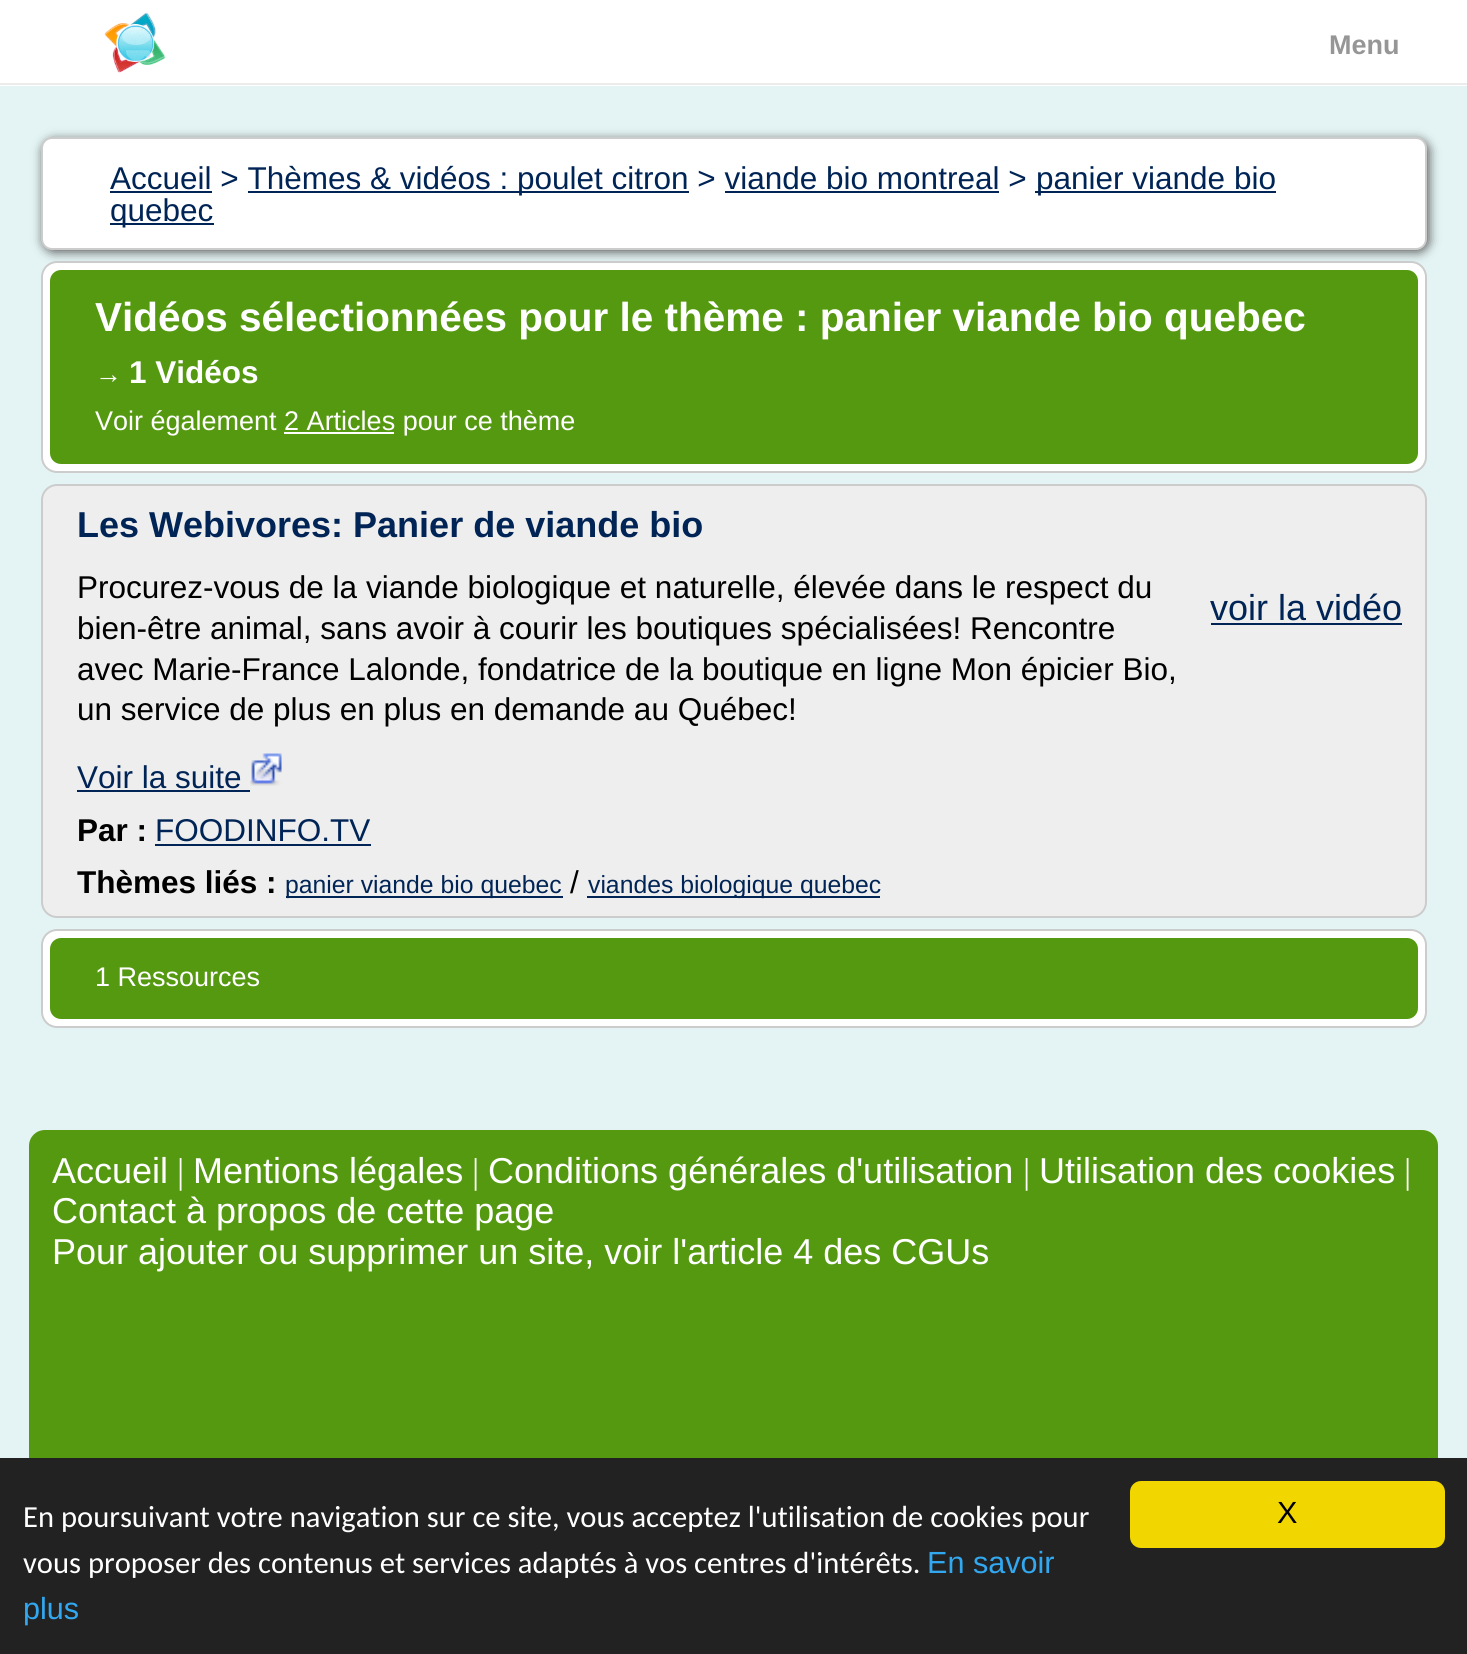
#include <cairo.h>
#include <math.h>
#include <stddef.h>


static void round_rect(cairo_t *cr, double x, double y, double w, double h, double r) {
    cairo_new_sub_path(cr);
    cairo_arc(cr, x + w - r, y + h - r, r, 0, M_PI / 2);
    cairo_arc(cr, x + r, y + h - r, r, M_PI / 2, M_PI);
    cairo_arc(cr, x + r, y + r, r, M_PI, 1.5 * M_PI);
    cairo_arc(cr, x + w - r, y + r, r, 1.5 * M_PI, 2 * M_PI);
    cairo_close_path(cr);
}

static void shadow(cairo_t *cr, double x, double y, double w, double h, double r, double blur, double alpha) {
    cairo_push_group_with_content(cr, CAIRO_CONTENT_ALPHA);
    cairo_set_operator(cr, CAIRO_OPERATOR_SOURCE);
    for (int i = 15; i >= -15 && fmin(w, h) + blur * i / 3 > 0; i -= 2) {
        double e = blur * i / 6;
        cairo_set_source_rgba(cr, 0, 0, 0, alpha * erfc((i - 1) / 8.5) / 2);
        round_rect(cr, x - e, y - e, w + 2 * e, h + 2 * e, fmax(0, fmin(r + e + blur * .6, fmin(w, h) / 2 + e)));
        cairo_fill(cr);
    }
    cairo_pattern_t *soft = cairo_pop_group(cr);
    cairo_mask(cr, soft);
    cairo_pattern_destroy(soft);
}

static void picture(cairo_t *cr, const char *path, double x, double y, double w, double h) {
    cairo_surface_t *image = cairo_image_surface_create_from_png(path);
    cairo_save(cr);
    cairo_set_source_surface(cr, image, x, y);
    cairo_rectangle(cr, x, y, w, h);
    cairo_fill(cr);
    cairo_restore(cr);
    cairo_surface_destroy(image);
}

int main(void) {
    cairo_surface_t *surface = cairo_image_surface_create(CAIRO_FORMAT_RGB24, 1467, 1654);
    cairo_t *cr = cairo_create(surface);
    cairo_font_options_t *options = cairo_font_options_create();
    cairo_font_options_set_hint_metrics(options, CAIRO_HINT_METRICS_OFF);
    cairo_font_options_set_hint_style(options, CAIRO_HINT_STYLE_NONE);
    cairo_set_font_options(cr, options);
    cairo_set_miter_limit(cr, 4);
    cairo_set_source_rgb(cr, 0.894, 0.957, 0.957);
    cairo_paint(cr);
    cairo_set_source_rgb(cr, 1, 1, 1);
    cairo_rectangle(cr, 0, 0, 1467, 86);
    cairo_fill(cr);
    cairo_set_source_rgb(cr, 0.922, 0.922, 0.922);
    cairo_rectangle(cr, 0, 83, 1467, 2);
    cairo_fill(cr);
    picture(cr, "img1.png", 104, 13, 62, 60);
    cairo_select_font_face(cr, "Liberation Sans", CAIRO_FONT_SLANT_NORMAL, CAIRO_FONT_WEIGHT_BOLD);
    cairo_set_font_size(cr, 27);
    cairo_set_source_rgb(cr, 0.588, 0.588, 0.588);
    cairo_move_to(cr, 1329, 54);
    cairo_show_text(cr, "Menu");
    cairo_set_source_rgb(cr, 0.333, 0.333, 0.333);
    shadow(cr, 43, 140, 1386, 112, 11, 5.5, 1);
    cairo_set_source_rgb(cr, 1, 1, 1);
    round_rect(cr, 42, 138, 1384, 111, 10);
    cairo_fill_preserve(cr);
    cairo_set_source_rgb(cr, 0.8, 0.8, 0.8);
    cairo_stroke(cr);
    cairo_select_font_face(cr, "Liberation Sans", CAIRO_FONT_SLANT_NORMAL, CAIRO_FONT_WEIGHT_NORMAL);
    cairo_set_font_size(cr, 31.5);
    cairo_set_source_rgb(cr, 0, 0.141, 0.333);
    cairo_move_to(cr, 110, 189);
    cairo_show_text(cr, "Accueil > Thèmes & vidéos :");
    cairo_rectangle(cr, 110, 191, 102, 2);
    cairo_fill(cr);
    cairo_rectangle(cr, 248, 191, 441, 2);
    cairo_fill(cr);
    cairo_move_to(cr, 517, 189);
    cairo_show_text(cr, "poulet citron > viande bio montreal >");
    cairo_rectangle(cr, 1035, 191, 241, 2);
    cairo_fill(cr);
    cairo_move_to(cr, 1036, 189);
    cairo_show_text(cr, "panier viande bio");
    cairo_rectangle(cr, 725, 191, 274, 2);
    cairo_fill(cr);
    cairo_rectangle(cr, 110, 223, 104, 2);
    cairo_fill(cr);
    cairo_move_to(cr, 110, 221);
    cairo_show_text(cr, "quebec");
    cairo_set_source_rgb(cr, 1, 1, 1);
    round_rect(cr, 42, 262, 1384, 210, 15);
    cairo_fill_preserve(cr);
    cairo_set_source_rgb(cr, 0.8, 0.8, 0.8);
    cairo_stroke(cr);
    cairo_set_source_rgb(cr, 0.333, 0.6, 0.067);
    round_rect(cr, 50, 270, 1368, 194, 11);
    cairo_fill(cr);
    cairo_select_font_face(cr, "Liberation Sans", CAIRO_FONT_SLANT_NORMAL, CAIRO_FONT_WEIGHT_BOLD);
    cairo_set_font_size(cr, 40.5);
    cairo_set_source_rgb(cr, 1, 1, 1);
    cairo_move_to(cr, 95, 331);
    cairo_show_text(cr, "Vidéos sélectionnées pour le thème : panier viande bio quebec");
    cairo_select_font_face(cr, "Liberation Sans", CAIRO_FONT_SLANT_NORMAL, CAIRO_FONT_WEIGHT_NORMAL);
    cairo_set_font_size(cr, 27);
    cairo_move_to(cr, 95, 383);
    cairo_show_text(cr, "→");
    cairo_select_font_face(cr, "Liberation Sans", CAIRO_FONT_SLANT_NORMAL, CAIRO_FONT_WEIGHT_BOLD);
    cairo_set_font_size(cr, 31.5);
    cairo_move_to(cr, 129, 383);
    cairo_show_text(cr, "1 Vidéos");
    cairo_select_font_face(cr, "Liberation Sans", CAIRO_FONT_SLANT_NORMAL, CAIRO_FONT_WEIGHT_NORMAL);
    cairo_set_font_size(cr, 27);
    cairo_move_to(cr, 95, 430);
    cairo_show_text(cr, "Voir également 2 Articles pour ce thème");
    cairo_rectangle(cr, 284, 432, 110, 2);
    cairo_fill(cr);
    cairo_set_source_rgb(cr, 0.933, 0.933, 0.933);
    round_rect(cr, 42, 485, 1384, 432, 15);
    cairo_fill_preserve(cr);
    cairo_set_source_rgb(cr, 0.8, 0.8, 0.8);
    cairo_stroke(cr);
    cairo_select_font_face(cr, "Liberation Sans", CAIRO_FONT_SLANT_NORMAL, CAIRO_FONT_WEIGHT_BOLD);
    cairo_set_font_size(cr, 36);
    cairo_set_source_rgb(cr, 0, 0.141, 0.333);
    cairo_move_to(cr, 77, 537);
    cairo_show_text(cr, "Les Webivores: Panier de viande bio");
    cairo_select_font_face(cr, "Liberation Sans", CAIRO_FONT_SLANT_NORMAL, CAIRO_FONT_WEIGHT_NORMAL);
    cairo_set_font_size(cr, 31.5);
    cairo_set_source_rgb(cr, 0, 0, 0);
    cairo_move_to(cr, 77, 598);
    cairo_show_text(cr, "Procurez-vous de la viande biologique et naturelle, élevée dans le respect du");
    cairo_move_to(cr, 77, 639);
    cairo_show_text(cr, "bien-être animal, sans avoir à courir les boutiques spécialisées! Rencontre");
    cairo_move_to(cr, 77, 680);
    cairo_show_text(cr, "avec Marie-France Lalonde, fondatrice de la boutique en ligne Mon épicier Bio,");
    cairo_move_to(cr, 77, 720);
    cairo_show_text(cr, "un service de plus en plus en demande au Québec!");
    cairo_set_font_size(cr, 36);
    cairo_set_source_rgb(cr, 0, 0.141, 0.333);
    cairo_move_to(cr, 1210, 620);
    cairo_show_text(cr, "voir la vidéo");
    cairo_rectangle(cr, 1211, 623, 191, 2);
    cairo_fill(cr);
    cairo_set_font_size(cr, 31.5);
    cairo_move_to(cr, 77, 788);
    cairo_show_text(cr, "Voir la suite");
    cairo_rectangle(cr, 77, 790, 173, 2);
    cairo_fill(cr);
    picture(cr, "img2.png", 250, 753, 32, 33);
    cairo_select_font_face(cr, "Liberation Sans", CAIRO_FONT_SLANT_NORMAL, CAIRO_FONT_WEIGHT_BOLD);
    cairo_set_source_rgb(cr, 0, 0, 0);
    cairo_move_to(cr, 77, 841);
    cairo_show_text(cr, "Par :");
    cairo_select_font_face(cr, "Liberation Sans", CAIRO_FONT_SLANT_NORMAL, CAIRO_FONT_WEIGHT_NORMAL);
    cairo_set_source_rgb(cr, 0, 0.141, 0.333);
    cairo_move_to(cr, 155, 841);
    cairo_show_text(cr, "FOODINFO.TV");
    cairo_rectangle(cr, 155, 844, 216, 2);
    cairo_fill(cr);
    cairo_select_font_face(cr, "Liberation Sans", CAIRO_FONT_SLANT_NORMAL, CAIRO_FONT_WEIGHT_BOLD);
    cairo_set_source_rgb(cr, 0, 0, 0);
    cairo_move_to(cr, 77, 893);
    cairo_show_text(cr, "Thèmes liés :");
    cairo_set_source_rgb(cr, 0, 0.141, 0.333);
    cairo_rectangle(cr, 286, 896, 277, 2);
    cairo_fill(cr);
    cairo_select_font_face(cr, "Liberation Sans", CAIRO_FONT_SLANT_NORMAL, CAIRO_FONT_WEIGHT_NORMAL);
    cairo_set_font_size(cr, 24.75);
    cairo_move_to(cr, 285, 893);
    cairo_show_text(cr, "panier viande bio quebec");
    cairo_set_font_size(cr, 31.5);
    cairo_set_source_rgb(cr, 0, 0, 0);
    cairo_move_to(cr, 570, 893);
    cairo_show_text(cr, "/");
    cairo_set_source_rgb(cr, 0, 0.141, 0.333);
    cairo_rectangle(cr, 587, 896, 293, 2);
    cairo_fill(cr);
    cairo_set_font_size(cr, 24.75);
    cairo_move_to(cr, 588, 893);
    cairo_show_text(cr, "viandes biologique quebec");
    cairo_set_source_rgb(cr, 1, 1, 1);
    round_rect(cr, 42, 930, 1384, 97, 15);
    cairo_fill_preserve(cr);
    cairo_set_source_rgb(cr, 0.8, 0.8, 0.8);
    cairo_stroke(cr);
    cairo_set_source_rgb(cr, 0.333, 0.6, 0.067);
    round_rect(cr, 50, 938, 1368, 81, 11);
    cairo_fill(cr);
    cairo_set_font_size(cr, 27);
    cairo_set_source_rgb(cr, 1, 1, 1);
    cairo_move_to(cr, 95, 986);
    cairo_show_text(cr, "1 Ressources");
    cairo_set_source_rgb(cr, 0.333, 0.6, 0.067);
    cairo_new_path(cr);
    cairo_move_to(cr, 45, 1130);
    cairo_line_to(cr, 1422, 1130);
    cairo_curve_to(cr, 1431, 1130, 1438, 1137, 1438, 1146);
    cairo_line_to(cr, 1438, 1499);
    cairo_line_to(cr, 29, 1499);
    cairo_line_to(cr, 29, 1146);
    cairo_curve_to(cr, 29, 1137, 36, 1130, 45, 1130);
    cairo_close_path(cr);
    cairo_fill(cr);
    cairo_set_font_size(cr, 36);
    cairo_set_source_rgb(cr, 1, 1, 1);
    cairo_move_to(cr, 52, 1183);
    cairo_show_text(cr, "Accueil");
    cairo_select_font_face(cr, "Liberation Serif", CAIRO_FONT_SLANT_NORMAL, CAIRO_FONT_WEIGHT_NORMAL);
    cairo_move_to(cr, 177, 1183);
    cairo_show_text(cr, "|");
    cairo_select_font_face(cr, "Liberation Sans", CAIRO_FONT_SLANT_NORMAL, CAIRO_FONT_WEIGHT_NORMAL);
    cairo_move_to(cr, 193, 1183);
    cairo_show_text(cr, "Mentions légales");
    cairo_select_font_face(cr, "Liberation Serif", CAIRO_FONT_SLANT_NORMAL, CAIRO_FONT_WEIGHT_NORMAL);
    cairo_move_to(cr, 472, 1183);
    cairo_show_text(cr, "|");
    cairo_select_font_face(cr, "Liberation Sans", CAIRO_FONT_SLANT_NORMAL, CAIRO_FONT_WEIGHT_NORMAL);
    cairo_move_to(cr, 488, 1183);
    cairo_show_text(cr, "Conditions générales d'utilisation");
    cairo_select_font_face(cr, "Liberation Serif", CAIRO_FONT_SLANT_NORMAL, CAIRO_FONT_WEIGHT_NORMAL);
    cairo_move_to(cr, 1023, 1183);
    cairo_show_text(cr, "|");
    cairo_select_font_face(cr, "Liberation Sans", CAIRO_FONT_SLANT_NORMAL, CAIRO_FONT_WEIGHT_NORMAL);
    cairo_move_to(cr, 1039, 1183);
    cairo_show_text(cr, "Utilisation des cookies");
    cairo_select_font_face(cr, "Liberation Serif", CAIRO_FONT_SLANT_NORMAL, CAIRO_FONT_WEIGHT_NORMAL);
    cairo_move_to(cr, 1404, 1183);
    cairo_show_text(cr, "|");
    cairo_select_font_face(cr, "Liberation Sans", CAIRO_FONT_SLANT_NORMAL, CAIRO_FONT_WEIGHT_NORMAL);
    cairo_move_to(cr, 52, 1223);
    cairo_show_text(cr, "Contact à propos de cette page");
    cairo_move_to(cr, 52, 1264);
    cairo_show_text(cr, "Pour ajouter ou supprimer un site, voir l'article 4 des CGUs");
    cairo_set_source_rgb(cr, 0.133, 0.133, 0.133);
    cairo_rectangle(cr, 0, 1458, 1467, 196);
    cairo_fill(cr);
    cairo_select_font_face(cr, "Carlito", CAIRO_FONT_SLANT_NORMAL, CAIRO_FONT_WEIGHT_NORMAL);
    cairo_set_font_size(cr, 30.6);
    cairo_set_source_rgb(cr, 1, 1, 1);
    cairo_move_to(cr, 23, 1527);
    cairo_show_text(cr, "En poursuivant votre navigation sur ce site, vous acceptez l'utilisation de cookies pour");
    cairo_move_to(cr, 23, 1573);
    cairo_show_text(cr, "vous proposer des contenus et services adaptés à vos centres d'intérêts.");
    cairo_select_font_face(cr, "Liberation Sans", CAIRO_FONT_SLANT_NORMAL, CAIRO_FONT_WEIGHT_NORMAL);
    cairo_set_source_rgb(cr, 0.192, 0.659, 0.941);
    cairo_move_to(cr, 927, 1573);
    cairo_show_text(cr, "En savoir");
    cairo_move_to(cr, 23, 1619);
    cairo_show_text(cr, "plus");
    cairo_set_source_rgb(cr, 0.945, 0.839, 0);
    round_rect(cr, 1130, 1481, 315, 67, 11);
    cairo_fill(cr);
    cairo_set_source_rgb(cr, 0, 0, 0);
    cairo_move_to(cr, 1277, 1523);
    cairo_show_text(cr, "X");
    cairo_surface_write_to_png(surface, "page.png");
    cairo_font_options_destroy(options);
    cairo_destroy(cr);
    cairo_surface_destroy(surface);
    return 0;
}
